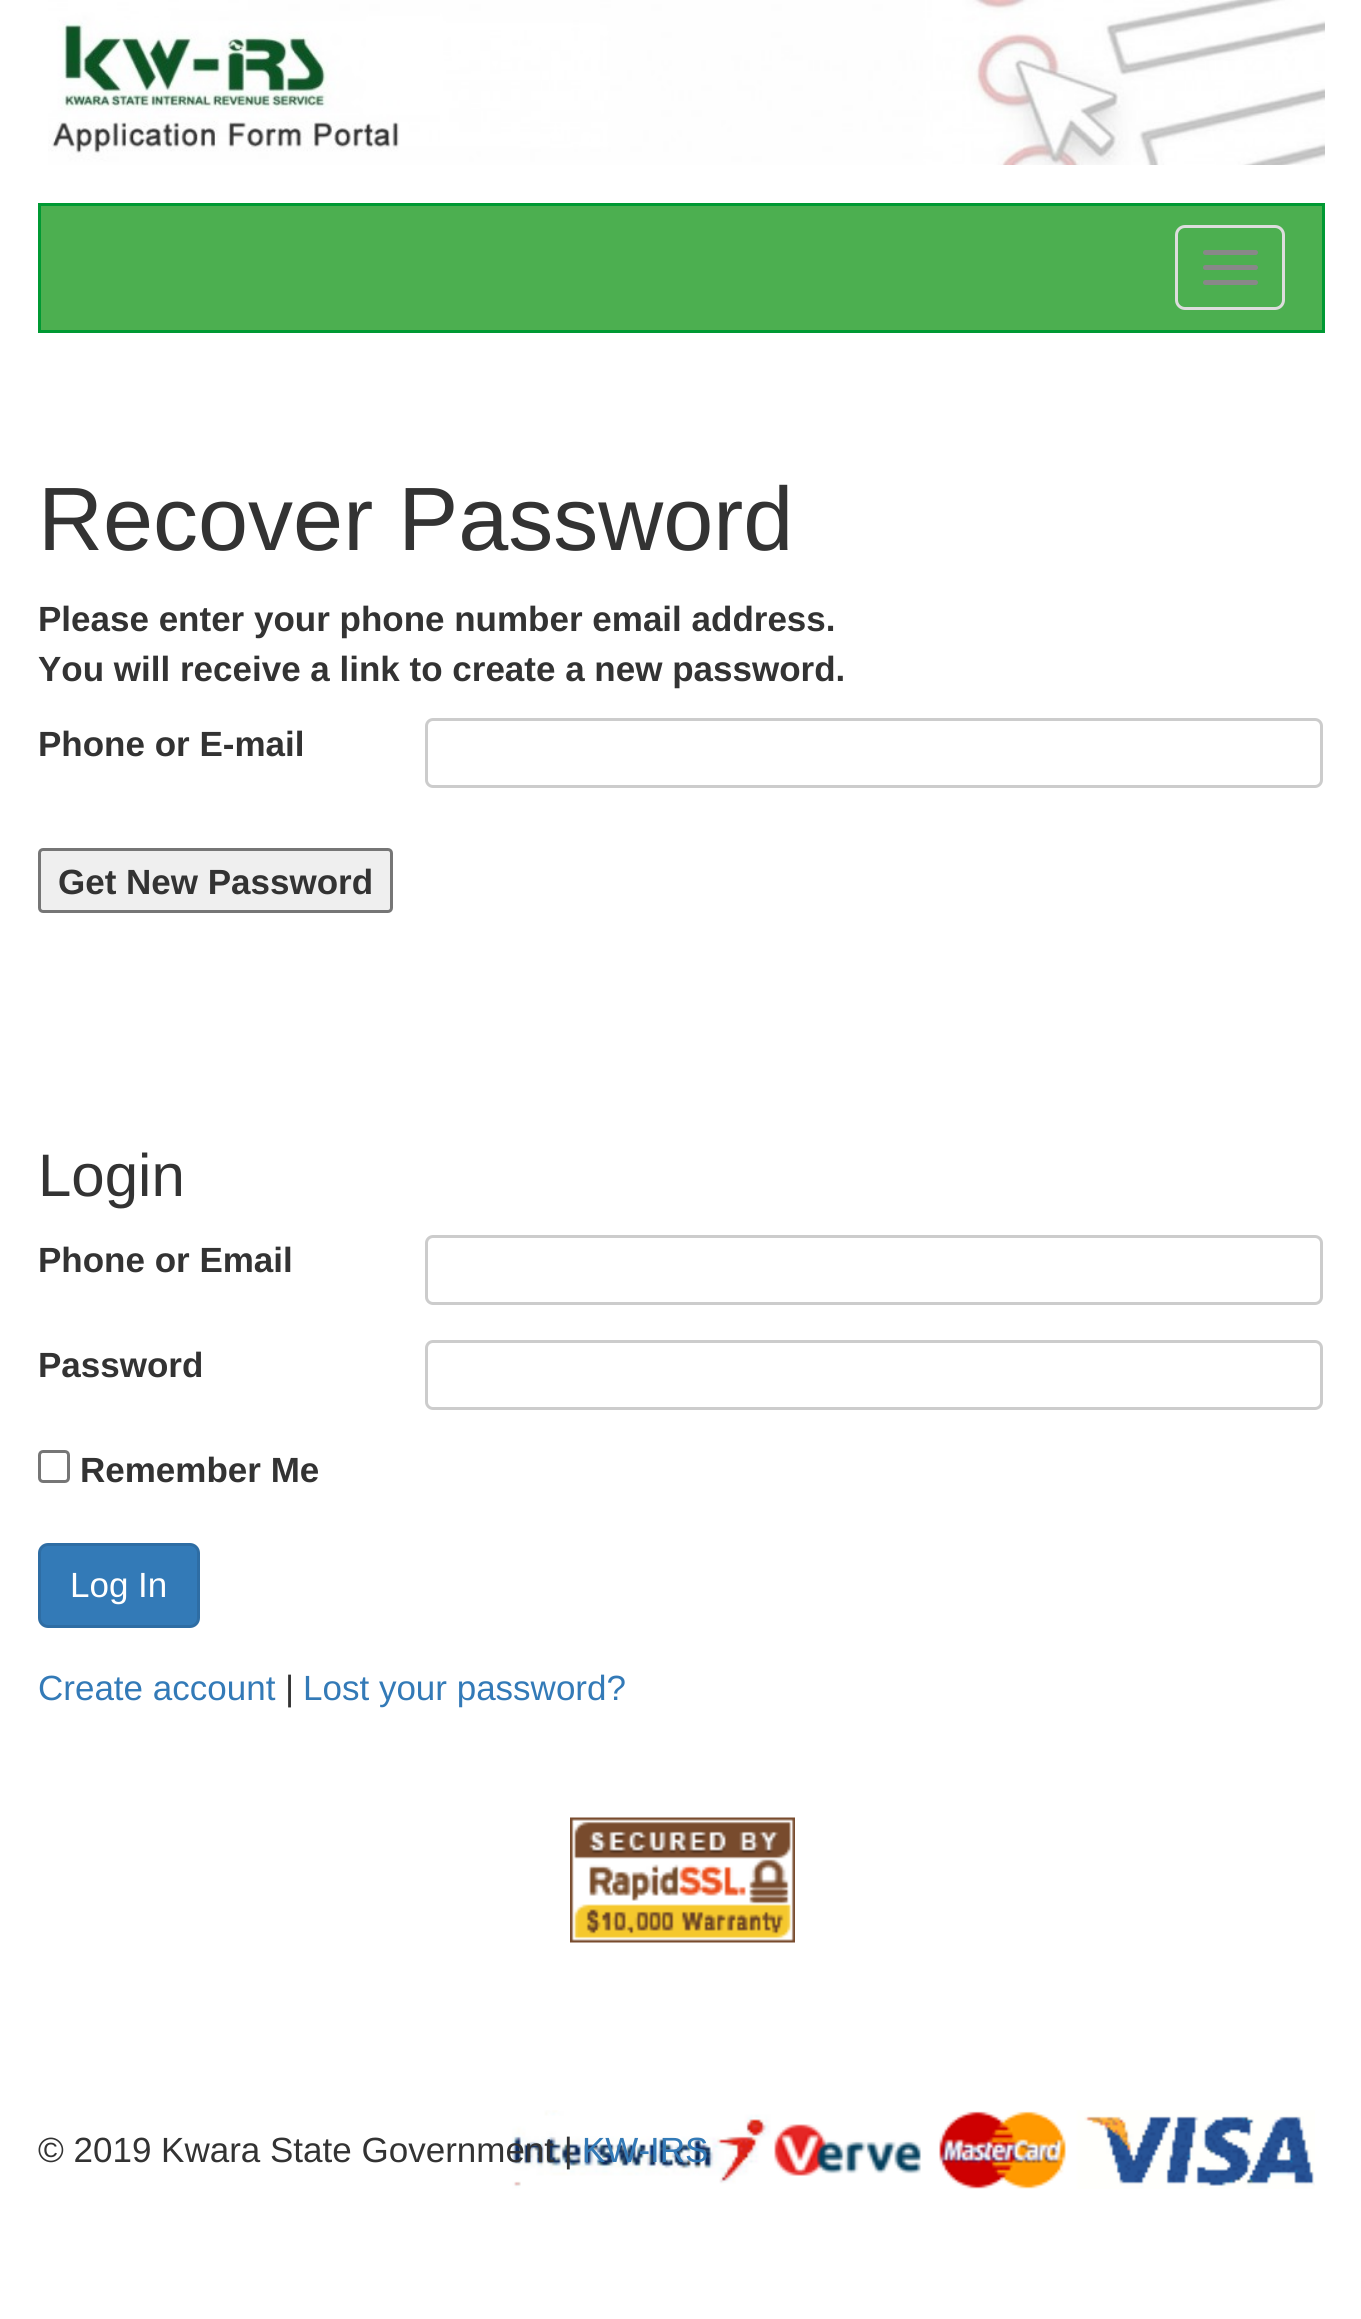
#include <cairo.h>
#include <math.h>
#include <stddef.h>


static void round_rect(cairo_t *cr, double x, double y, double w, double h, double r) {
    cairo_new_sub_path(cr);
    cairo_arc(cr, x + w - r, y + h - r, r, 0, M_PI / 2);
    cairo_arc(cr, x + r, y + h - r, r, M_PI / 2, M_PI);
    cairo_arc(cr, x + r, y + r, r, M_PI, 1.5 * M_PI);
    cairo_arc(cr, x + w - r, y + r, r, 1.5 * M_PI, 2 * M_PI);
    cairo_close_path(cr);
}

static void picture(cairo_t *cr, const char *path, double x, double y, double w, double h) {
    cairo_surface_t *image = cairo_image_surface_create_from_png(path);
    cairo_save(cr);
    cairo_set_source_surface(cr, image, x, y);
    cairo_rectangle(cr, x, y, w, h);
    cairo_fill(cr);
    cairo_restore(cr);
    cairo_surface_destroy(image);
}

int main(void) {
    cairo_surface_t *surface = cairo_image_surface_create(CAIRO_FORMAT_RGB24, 1361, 2319);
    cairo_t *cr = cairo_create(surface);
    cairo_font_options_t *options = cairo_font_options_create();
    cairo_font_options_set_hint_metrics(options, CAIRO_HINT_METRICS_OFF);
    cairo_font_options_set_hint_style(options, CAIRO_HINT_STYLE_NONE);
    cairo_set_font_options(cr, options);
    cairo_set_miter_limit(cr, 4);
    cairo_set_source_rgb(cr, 1, 1, 1);
    cairo_paint(cr);
    picture(cr, "img1.png", 48, 0, 1277, 165);
    cairo_set_source_rgb(cr, 0.298, 0.686, 0.314);
    cairo_rectangle(cr, 39.5, 204.5, 1284, 127);
    cairo_fill_preserve(cr);
    cairo_set_source_rgb(cr, 0, 0.6, 0.2);
    cairo_set_line_width(cr, 3);
    cairo_stroke(cr);
    round_rect(cr, 1176.5, 226.5, 107, 82, 8.5);
    cairo_set_source_rgb(cr, 0.867, 0.867, 0.867);
    cairo_stroke(cr);
    cairo_set_source_rgb(cr, 0.533, 0.533, 0.533);
    round_rect(cr, 1203, 250, 55, 5, 2.5);
    cairo_fill(cr);
    round_rect(cr, 1203, 265, 55, 5, 2.5);
    cairo_fill(cr);
    round_rect(cr, 1203, 280, 55, 5, 2.5);
    cairo_fill(cr);
    cairo_select_font_face(cr, "Liberation Sans", CAIRO_FONT_SLANT_NORMAL, CAIRO_FONT_WEIGHT_NORMAL);
    cairo_set_font_size(cr, 90);
    cairo_set_source_rgb(cr, 0.2, 0.2, 0.2);
    cairo_move_to(cr, 38, 550);
    cairo_show_text(cr, "Recover Password");
    cairo_select_font_face(cr, "Liberation Sans", CAIRO_FONT_SLANT_NORMAL, CAIRO_FONT_WEIGHT_BOLD);
    cairo_set_font_size(cr, 35);
    cairo_move_to(cr, 38, 631);
    cairo_show_text(cr, "Please enter your phone number email address.");
    cairo_move_to(cr, 38, 681);
    cairo_show_text(cr, "You will receive a link to create a new password.");
    cairo_move_to(cr, 38, 756);
    cairo_show_text(cr, "Phone or E-mail");
    round_rect(cr, 426.5, 719.5, 895, 67, 6.5);
    cairo_set_source_rgb(cr, 0.8, 0.8, 0.8);
    cairo_stroke(cr);
    cairo_set_source_rgb(cr, 0.937, 0.937, 0.937);
    round_rect(cr, 39.5, 849.5, 352, 62, 3.5);
    cairo_fill_preserve(cr);
    cairo_set_source_rgb(cr, 0.463, 0.463, 0.463);
    cairo_stroke(cr);
    cairo_set_source_rgb(cr, 0.2, 0.2, 0.2);
    cairo_move_to(cr, 58, 894);
    cairo_show_text(cr, "Get New Password");
    cairo_select_font_face(cr, "Liberation Sans", CAIRO_FONT_SLANT_NORMAL, CAIRO_FONT_WEIGHT_NORMAL);
    cairo_set_font_size(cr, 60);
    cairo_move_to(cr, 38, 1196);
    cairo_show_text(cr, "Login");
    cairo_select_font_face(cr, "Liberation Sans", CAIRO_FONT_SLANT_NORMAL, CAIRO_FONT_WEIGHT_BOLD);
    cairo_set_font_size(cr, 35);
    cairo_move_to(cr, 38, 1272);
    cairo_show_text(cr, "Phone or Email");
    round_rect(cr, 426.5, 1236.5, 895, 67, 6.5);
    cairo_set_source_rgb(cr, 0.8, 0.8, 0.8);
    cairo_stroke(cr);
    cairo_set_source_rgb(cr, 0.2, 0.2, 0.2);
    cairo_move_to(cr, 38, 1377);
    cairo_show_text(cr, "Password");
    round_rect(cr, 426.5, 1341.5, 895, 67, 6.5);
    cairo_set_source_rgb(cr, 0.8, 0.8, 0.8);
    cairo_stroke(cr);
    round_rect(cr, 39.5, 1451.5, 29, 30, 3.5);
    cairo_set_source_rgb(cr, 0.463, 0.463, 0.463);
    cairo_stroke(cr);
    cairo_set_source_rgb(cr, 0.2, 0.2, 0.2);
    cairo_move_to(cr, 80, 1482);
    cairo_show_text(cr, "Remember Me");
    cairo_set_source_rgb(cr, 0.2, 0.478, 0.718);
    round_rect(cr, 39.5, 1544.5, 159, 82, 8.5);
    cairo_fill_preserve(cr);
    cairo_set_source_rgb(cr, 0.18, 0.427, 0.643);
    cairo_stroke(cr);
    cairo_select_font_face(cr, "Liberation Sans", CAIRO_FONT_SLANT_NORMAL, CAIRO_FONT_WEIGHT_NORMAL);
    cairo_set_source_rgb(cr, 1, 1, 1);
    cairo_move_to(cr, 70, 1597);
    cairo_show_text(cr, "Log In");
    cairo_set_source_rgb(cr, 0.2, 0.478, 0.718);
    cairo_move_to(cr, 38, 1700);
    cairo_show_text(cr, "Create account");
    cairo_set_source_rgb(cr, 0.2, 0.2, 0.2);
    cairo_move_to(cr, 285, 1700);
    cairo_show_text(cr, "|");
    cairo_set_source_rgb(cr, 0.2, 0.478, 0.718);
    cairo_move_to(cr, 303, 1700);
    cairo_show_text(cr, "Lost your password?");
    picture(cr, "img2.png", 570, 1817, 225, 126);
    picture(cr, "img3.png", 512, 2110, 803, 79);
    cairo_set_source_rgb(cr, 0.2, 0.2, 0.2);
    cairo_move_to(cr, 38, 2162);
    cairo_show_text(cr, "© 2019 Kwara State Government |");
    cairo_set_source_rgb(cr, 0.2, 0.478, 0.718);
    cairo_move_to(cr, 582, 2162);
    cairo_show_text(cr, "KW-IRS");
    cairo_surface_write_to_png(surface, "page.png");
    cairo_font_options_destroy(options);
    cairo_destroy(cr);
    cairo_surface_destroy(surface);
    return 0;
}
